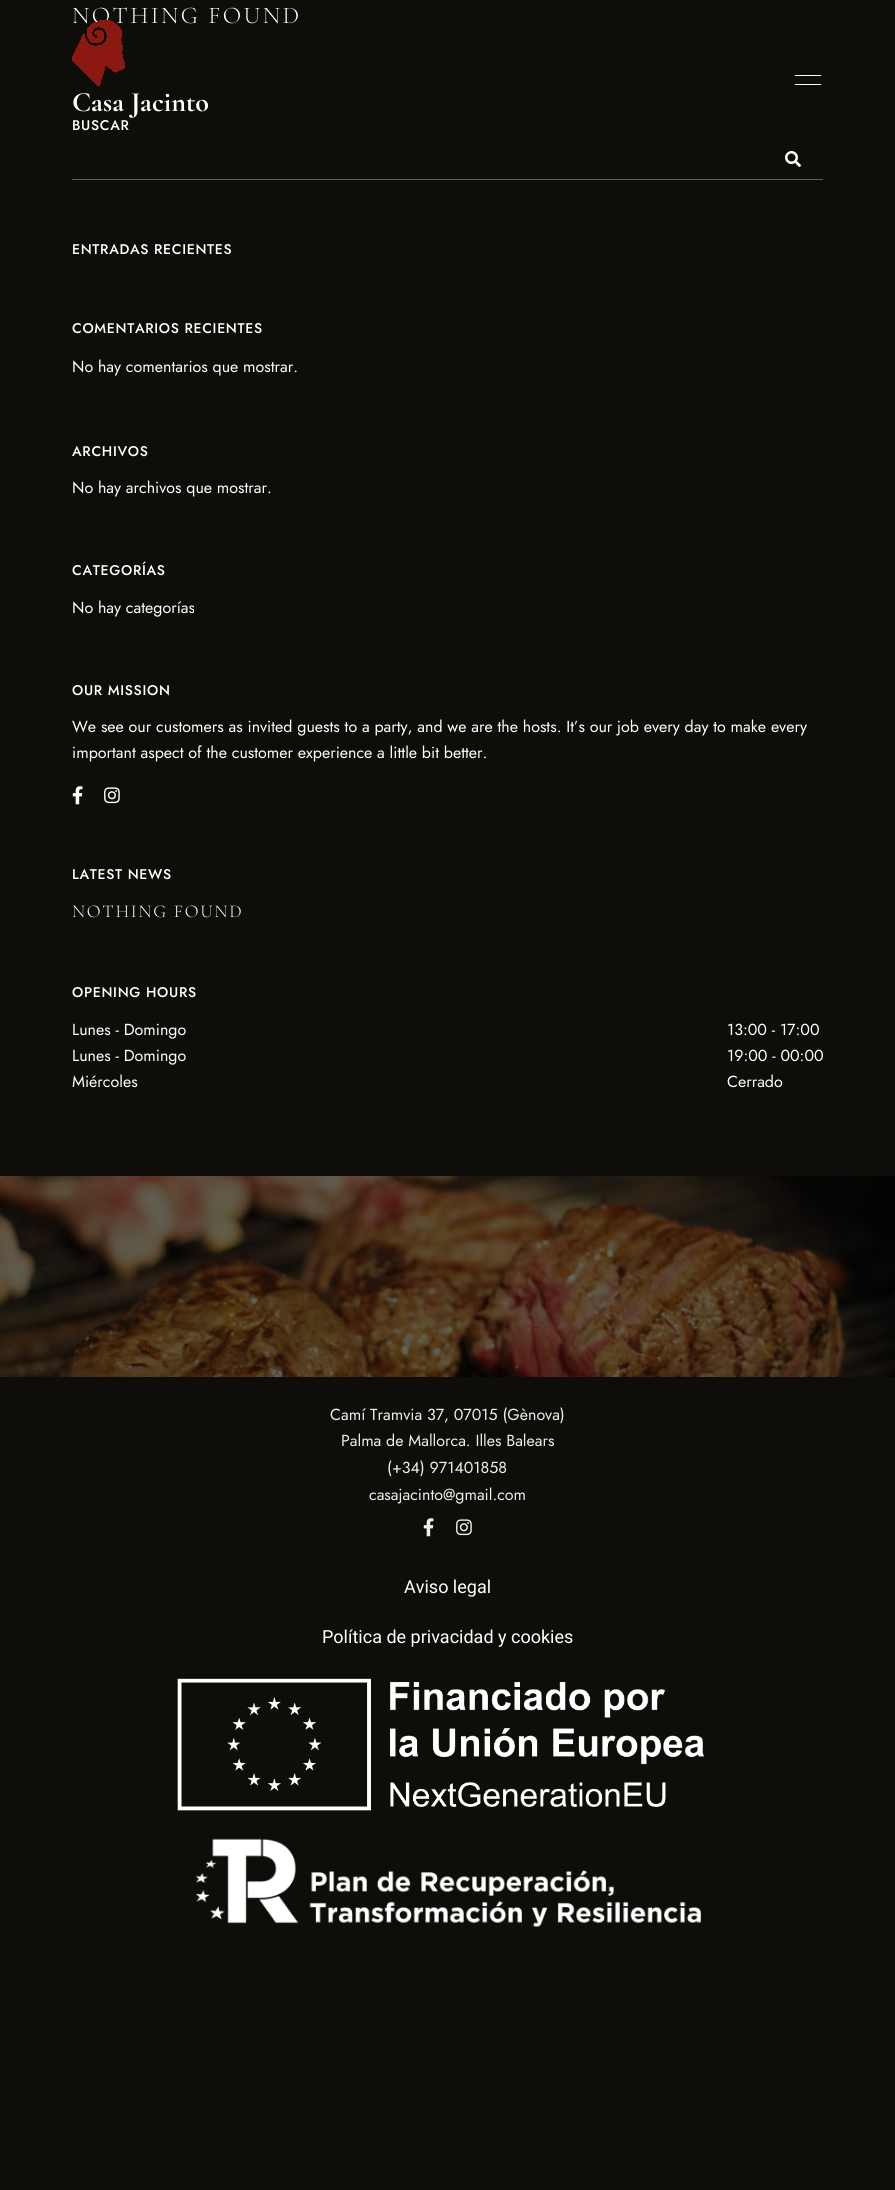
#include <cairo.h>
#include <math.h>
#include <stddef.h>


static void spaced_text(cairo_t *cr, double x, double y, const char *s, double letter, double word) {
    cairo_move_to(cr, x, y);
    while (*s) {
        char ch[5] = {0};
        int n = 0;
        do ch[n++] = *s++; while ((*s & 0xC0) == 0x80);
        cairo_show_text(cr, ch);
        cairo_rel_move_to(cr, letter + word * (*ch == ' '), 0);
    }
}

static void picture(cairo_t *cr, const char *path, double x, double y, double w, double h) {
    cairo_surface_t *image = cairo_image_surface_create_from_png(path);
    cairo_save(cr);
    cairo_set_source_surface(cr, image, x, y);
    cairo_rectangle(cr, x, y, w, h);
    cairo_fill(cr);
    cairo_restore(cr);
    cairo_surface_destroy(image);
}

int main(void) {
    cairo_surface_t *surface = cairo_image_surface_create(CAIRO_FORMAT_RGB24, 895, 2190);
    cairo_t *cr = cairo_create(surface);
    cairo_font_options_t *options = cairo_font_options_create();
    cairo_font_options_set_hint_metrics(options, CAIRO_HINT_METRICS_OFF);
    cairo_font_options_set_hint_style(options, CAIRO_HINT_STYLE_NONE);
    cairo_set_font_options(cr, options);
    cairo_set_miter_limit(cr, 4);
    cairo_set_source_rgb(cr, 0.055, 0.051, 0.039);
    cairo_paint(cr);
    cairo_select_font_face(cr, "Cormorant Garamond Light", CAIRO_FONT_SLANT_NORMAL, CAIRO_FONT_WEIGHT_NORMAL);
    cairo_set_font_size(cr, 24);
    cairo_set_source_rgb(cr, 1, 1, 1);
    spaced_text(cr, 72, 23, "NOTHING FOUND", 2.4, 0);
    cairo_select_font_face(cr, "Jost Medium", CAIRO_FONT_SLANT_NORMAL, CAIRO_FONT_WEIGHT_NORMAL);
    cairo_set_font_size(cr, 14);
    spaced_text(cr, 72, 130, "BUSCAR", 0.7, 0);
    picture(cr, "img1.png", 785, 151, 16, 16);
    cairo_set_source_rgb(cr, 0.384, 0.384, 0.376);
    cairo_rectangle(cr, 72, 179, 751, 1);
    cairo_fill(cr);
    cairo_set_source_rgb(cr, 1, 1, 1);
    spaced_text(cr, 72, 254, "ENTRADAS RECIENTES", 0.7, 0);
    spaced_text(cr, 72, 333, "COMENTARIOS RECIENTES", 0.7, 0);
    cairo_select_font_face(cr, "Jost", CAIRO_FONT_SLANT_NORMAL, CAIRO_FONT_WEIGHT_NORMAL);
    cairo_set_font_size(cr, 16);
    cairo_move_to(cr, 72, 372);
    cairo_show_text(cr, "No hay comentarios que mostrar.");
    cairo_select_font_face(cr, "Jost Medium", CAIRO_FONT_SLANT_NORMAL, CAIRO_FONT_WEIGHT_NORMAL);
    cairo_set_font_size(cr, 14);
    spaced_text(cr, 72, 456, "ARCHIVOS", 0.7, 0);
    cairo_select_font_face(cr, "Jost", CAIRO_FONT_SLANT_NORMAL, CAIRO_FONT_WEIGHT_NORMAL);
    cairo_set_font_size(cr, 16);
    cairo_move_to(cr, 72, 493);
    cairo_show_text(cr, "No hay archivos que mostrar.");
    cairo_select_font_face(cr, "Jost Medium", CAIRO_FONT_SLANT_NORMAL, CAIRO_FONT_WEIGHT_NORMAL);
    cairo_set_font_size(cr, 14);
    spaced_text(cr, 72, 575, "CATEGORÍAS", 0.7, 0);
    cairo_select_font_face(cr, "Jost", CAIRO_FONT_SLANT_NORMAL, CAIRO_FONT_WEIGHT_NORMAL);
    cairo_set_font_size(cr, 16);
    cairo_move_to(cr, 72, 613);
    cairo_show_text(cr, "No hay categorías");
    cairo_select_font_face(cr, "Jost Medium", CAIRO_FONT_SLANT_NORMAL, CAIRO_FONT_WEIGHT_NORMAL);
    cairo_set_font_size(cr, 14);
    spaced_text(cr, 72, 695, "OUR MISSION", 0.7, 0);
    cairo_select_font_face(cr, "Jost", CAIRO_FONT_SLANT_NORMAL, CAIRO_FONT_WEIGHT_NORMAL);
    cairo_set_font_size(cr, 16);
    cairo_move_to(cr, 72, 732);
    cairo_show_text(cr, "We see our customers as invited guests to a party, and we are the hosts. It’s our job every day to make every");
    cairo_move_to(cr, 72, 758);
    cairo_show_text(cr, "important aspect of the customer experience a little bit better.");
    picture(cr, "img2.png", 72, 786, 11, 19);
    picture(cr, "img3.png", 104, 787, 16, 17);
    cairo_select_font_face(cr, "Jost Medium", CAIRO_FONT_SLANT_NORMAL, CAIRO_FONT_WEIGHT_NORMAL);
    cairo_set_font_size(cr, 14);
    spaced_text(cr, 72, 879, "LATEST NEWS", 0.7, 0);
    cairo_select_font_face(cr, "Cormorant Garamond Light", CAIRO_FONT_SLANT_NORMAL, CAIRO_FONT_WEIGHT_NORMAL);
    cairo_set_font_size(cr, 18);
    spaced_text(cr, 72, 917, "NOTHING FOUND", 1.75, 0);
    cairo_select_font_face(cr, "Jost Medium", CAIRO_FONT_SLANT_NORMAL, CAIRO_FONT_WEIGHT_NORMAL);
    cairo_set_font_size(cr, 14);
    spaced_text(cr, 72, 997, "OPENING HOURS", 0.7, 0);
    cairo_select_font_face(cr, "Jost", CAIRO_FONT_SLANT_NORMAL, CAIRO_FONT_WEIGHT_NORMAL);
    cairo_set_font_size(cr, 16);
    cairo_move_to(cr, 72, 1035);
    cairo_show_text(cr, "Lunes - Domingo");
    cairo_move_to(cr, 727, 1035);
    cairo_show_text(cr, "13:00 - 17:00");
    cairo_move_to(cr, 72, 1061);
    cairo_show_text(cr, "Lunes - Domingo");
    cairo_move_to(cr, 727, 1061);
    cairo_show_text(cr, "19:00 - 00:00");
    cairo_move_to(cr, 72, 1087);
    cairo_show_text(cr, "Miércoles");
    cairo_move_to(cr, 727, 1087);
    cairo_show_text(cr, "Cerrado");
    cairo_rectangle(cr, 795, 75, 26, 1);
    cairo_fill(cr);
    cairo_rectangle(cr, 795, 84, 26, 1);
    cairo_fill(cr);
    picture(cr, "img4.png", 72, 20, 53, 66);
    cairo_select_font_face(cr, "Cormorant Garamond", CAIRO_FONT_SLANT_NORMAL, CAIRO_FONT_WEIGHT_BOLD);
    cairo_set_font_size(cr, 28);
    cairo_move_to(cr, 72, 111);
    cairo_show_text(cr, "Casa Jacinto");
    picture(cr, "img5.png", 0, 1176, 895, 201);
    cairo_select_font_face(cr, "Jost", CAIRO_FONT_SLANT_NORMAL, CAIRO_FONT_WEIGHT_NORMAL);
    cairo_set_font_size(cr, 16);
    cairo_set_source_rgb(cr, 0.933, 0.933, 0.933);
    cairo_move_to(cr, 330, 1420);
    cairo_show_text(cr, "Camí Tramvia 37, 07015 (Gènova)");
    cairo_move_to(cr, 341, 1446);
    cairo_show_text(cr, "Palma de Mallorca. Illes Balears");
    cairo_move_to(cr, 387, 1473);
    cairo_show_text(cr, "(+34) 971401858");
    cairo_move_to(cr, 369, 1500);
    cairo_show_text(cr, "casajacinto@gmail.com");
    picture(cr, "img6.png", 423, 1518, 11, 19);
    picture(cr, "img7.png", 456, 1519, 16, 17);
    cairo_select_font_face(cr, "Roboto", CAIRO_FONT_SLANT_NORMAL, CAIRO_FONT_WEIGHT_NORMAL);
    cairo_set_font_size(cr, 18);
    cairo_set_source_rgb(cr, 1, 1, 1);
    cairo_move_to(cr, 404, 1593);
    cairo_show_text(cr, "Aviso legal");
    cairo_move_to(cr, 322, 1643);
    cairo_show_text(cr, "Política de privacidad y cookies");
    picture(cr, "img8.png", 177, 1678, 527, 133);
    picture(cr, "img9.png", 196, 1838, 505, 90);
    cairo_surface_write_to_png(surface, "page.png");
    cairo_font_options_destroy(options);
    cairo_destroy(cr);
    cairo_surface_destroy(surface);
    return 0;
}
